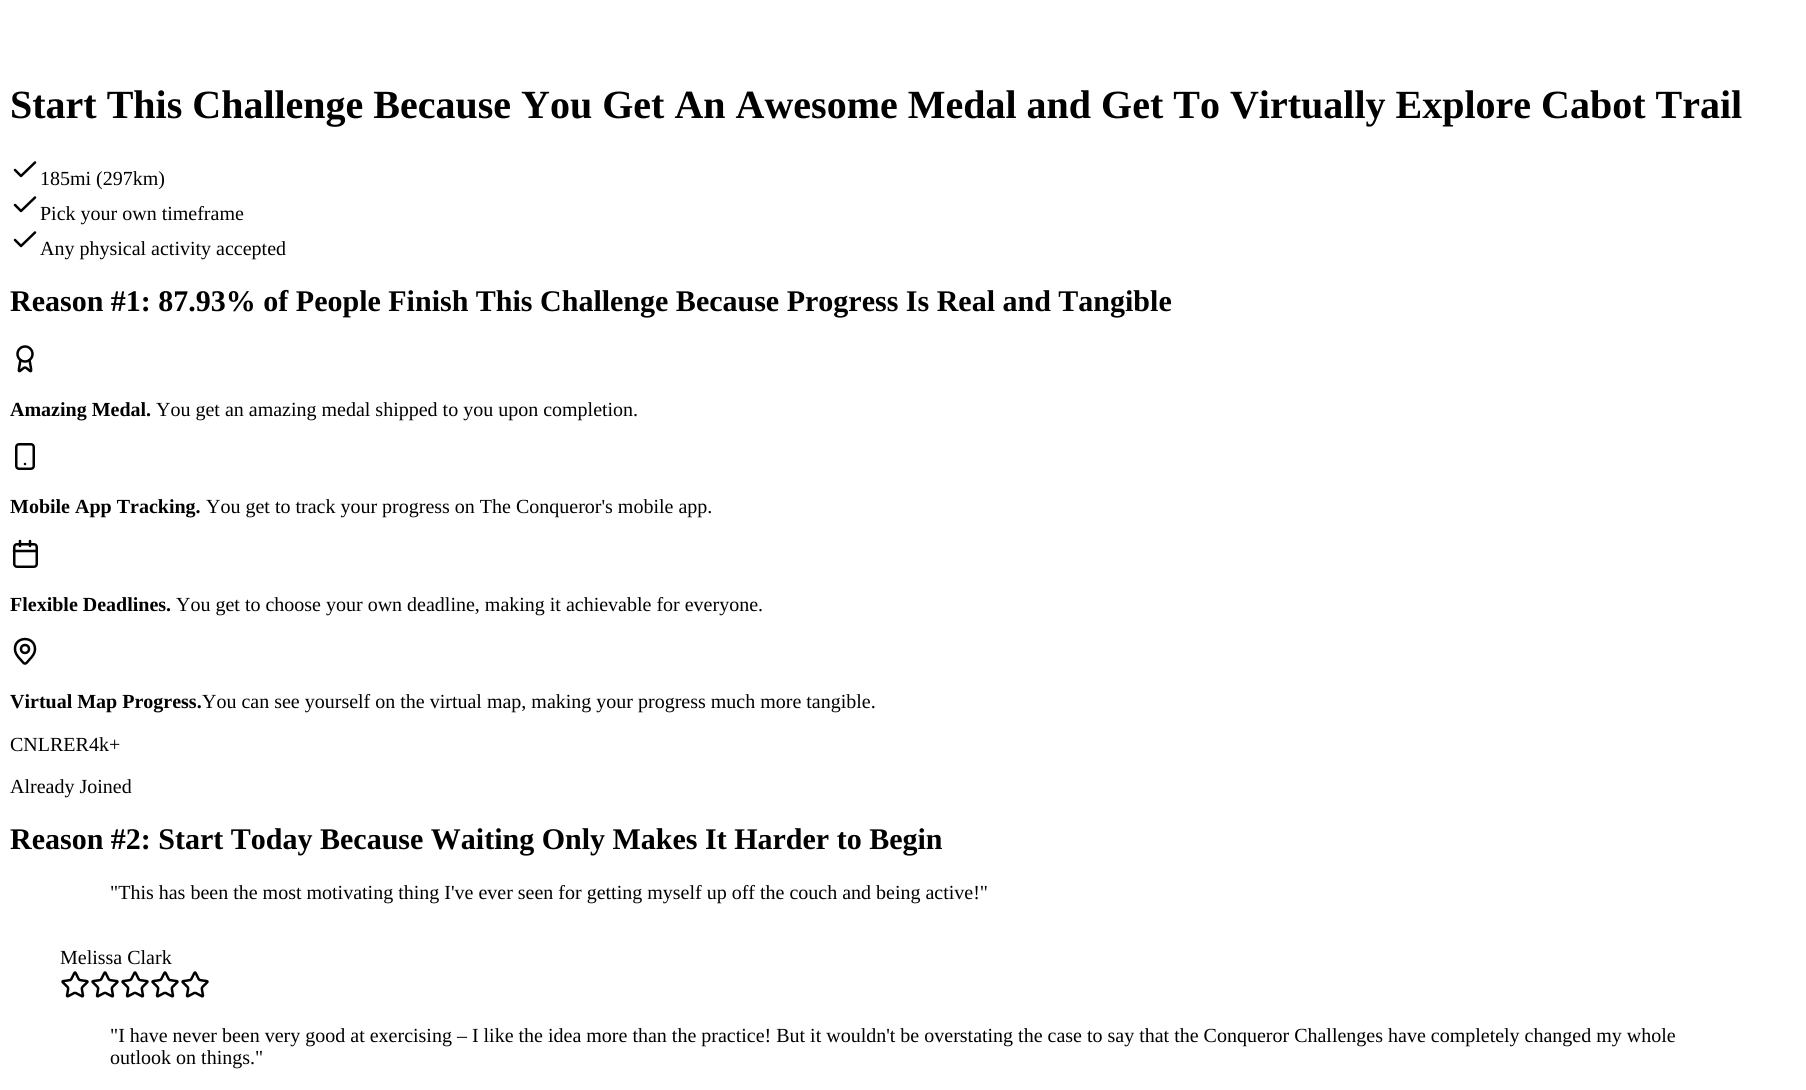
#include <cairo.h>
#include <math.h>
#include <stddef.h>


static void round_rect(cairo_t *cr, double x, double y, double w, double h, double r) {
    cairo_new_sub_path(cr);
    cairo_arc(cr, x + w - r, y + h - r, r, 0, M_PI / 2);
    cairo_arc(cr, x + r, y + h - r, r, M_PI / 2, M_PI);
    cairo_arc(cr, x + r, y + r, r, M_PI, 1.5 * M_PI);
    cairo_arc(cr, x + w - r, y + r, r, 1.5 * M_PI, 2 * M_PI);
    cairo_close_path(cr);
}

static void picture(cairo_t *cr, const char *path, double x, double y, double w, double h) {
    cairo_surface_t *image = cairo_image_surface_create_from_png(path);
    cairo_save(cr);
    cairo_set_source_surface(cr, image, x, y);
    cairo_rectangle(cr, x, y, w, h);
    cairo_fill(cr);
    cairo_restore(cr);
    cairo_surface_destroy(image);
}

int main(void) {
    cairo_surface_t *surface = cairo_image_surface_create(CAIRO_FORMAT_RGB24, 1806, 1090);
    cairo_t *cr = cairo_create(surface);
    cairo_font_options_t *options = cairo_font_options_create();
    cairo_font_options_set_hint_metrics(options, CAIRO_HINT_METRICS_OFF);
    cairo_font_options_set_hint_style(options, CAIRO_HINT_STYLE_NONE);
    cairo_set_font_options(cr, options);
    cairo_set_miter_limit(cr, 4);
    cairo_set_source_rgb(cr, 1, 1, 1);
    cairo_paint(cr);
    cairo_select_font_face(cr, "Liberation Serif", CAIRO_FONT_SLANT_NORMAL, CAIRO_FONT_WEIGHT_BOLD);
    cairo_set_font_size(cr, 40);
    cairo_set_source_rgb(cr, 0, 0, 0);
    cairo_move_to(cr, 10, 118);
    cairo_show_text(cr, "Start This Challenge Because You Get An Awesome Medal and Get To Virtually Explore Cabot Trail");
    cairo_new_path(cr);
    cairo_move_to(cr, 35, 162.5);
    cairo_line_to(cr, 21, 176);
    cairo_line_to(cr, 15, 170);
    cairo_move_to(cr, 35, 197.5);
    cairo_line_to(cr, 21, 211);
    cairo_line_to(cr, 15, 205);
    cairo_set_line_width(cr, 2.5);
    cairo_set_line_cap(cr, CAIRO_LINE_CAP_ROUND);
    cairo_set_line_join(cr, CAIRO_LINE_JOIN_ROUND);
    cairo_stroke(cr);
    cairo_select_font_face(cr, "Liberation Serif", CAIRO_FONT_SLANT_NORMAL, CAIRO_FONT_WEIGHT_NORMAL);
    cairo_set_font_size(cr, 20);
    cairo_move_to(cr, 40, 185);
    cairo_show_text(cr, "185mi (297km)");
    cairo_move_to(cr, 40, 220);
    cairo_show_text(cr, "Pick your own timeframe");
    cairo_new_path(cr);
    cairo_move_to(cr, 35, 232.5);
    cairo_line_to(cr, 21, 246);
    cairo_line_to(cr, 15, 240);
    cairo_stroke(cr);
    cairo_move_to(cr, 40, 255);
    cairo_show_text(cr, "Any physical activity accepted");
    cairo_select_font_face(cr, "Liberation Serif", CAIRO_FONT_SLANT_NORMAL, CAIRO_FONT_WEIGHT_BOLD);
    cairo_set_font_size(cr, 30);
    cairo_move_to(cr, 10, 311);
    cairo_show_text(cr, "Reason #1: 87.93% of People Finish This Challenge Because Progress Is Real and Tangible");
    cairo_new_path(cr);
    cairo_move_to(cr, 29.5, 360);
    cairo_line_to(cr, 31, 368.5);
    cairo_curve_to(cr, 32, 375, 27.5, 367.5, 25, 367.5);
    cairo_curve_to(cr, 22.5, 367.5, 18, 375, 19, 368.5);
    cairo_line_to(cr, 20.5, 360);
    cairo_stroke(cr);
    cairo_arc(cr, 25, 354, 7.5, 0, 2 * M_PI);
    cairo_set_line_cap(cr, CAIRO_LINE_CAP_BUTT);
    cairo_set_line_join(cr, CAIRO_LINE_JOIN_MITER);
    cairo_stroke(cr);
    cairo_set_font_size(cr, 20);
    cairo_move_to(cr, 10, 416);
    cairo_show_text(cr, "Amazing Medal.");
    cairo_select_font_face(cr, "Liberation Serif", CAIRO_FONT_SLANT_NORMAL, CAIRO_FONT_WEIGHT_NORMAL);
    cairo_move_to(cr, 156, 416);
    cairo_show_text(cr, "You get an amazing medal shipped to you upon completion.");
    round_rect(cr, 16.25, 444.25, 17.5, 24.5, 2.75);
    cairo_stroke(cr);
    cairo_new_path(cr);
    cairo_move_to(cr, 25, 464);
    cairo_line_to(cr, 25, 464);
    cairo_set_line_cap(cr, CAIRO_LINE_CAP_ROUND);
    cairo_set_line_join(cr, CAIRO_LINE_JOIN_ROUND);
    cairo_stroke(cr);
    cairo_select_font_face(cr, "Liberation Serif", CAIRO_FONT_SLANT_NORMAL, CAIRO_FONT_WEIGHT_BOLD);
    cairo_move_to(cr, 10, 513);
    cairo_show_text(cr, "Mobile App Tracking.");
    cairo_select_font_face(cr, "Liberation Serif", CAIRO_FONT_SLANT_NORMAL, CAIRO_FONT_WEIGHT_NORMAL);
    cairo_move_to(cr, 206, 513);
    cairo_show_text(cr, "You get to track your progress on The Conqueror's mobile app.");
    cairo_new_path(cr);
    cairo_move_to(cr, 20, 541);
    cairo_line_to(cr, 20, 546);
    cairo_move_to(cr, 30, 541);
    cairo_line_to(cr, 30, 546);
    cairo_stroke(cr);
    round_rect(cr, 14.25, 544.25, 22.5, 22.5, 2.75);
    cairo_set_line_cap(cr, CAIRO_LINE_CAP_BUTT);
    cairo_set_line_join(cr, CAIRO_LINE_JOIN_MITER);
    cairo_stroke(cr);
    cairo_new_path(cr);
    cairo_move_to(cr, 14, 551);
    cairo_line_to(cr, 36, 551);
    cairo_set_line_cap(cr, CAIRO_LINE_CAP_ROUND);
    cairo_set_line_join(cr, CAIRO_LINE_JOIN_ROUND);
    cairo_stroke(cr);
    cairo_select_font_face(cr, "Liberation Serif", CAIRO_FONT_SLANT_NORMAL, CAIRO_FONT_WEIGHT_BOLD);
    cairo_move_to(cr, 10, 611);
    cairo_show_text(cr, "Flexible Deadlines.");
    cairo_select_font_face(cr, "Liberation Serif", CAIRO_FONT_SLANT_NORMAL, CAIRO_FONT_WEIGHT_NORMAL);
    cairo_move_to(cr, 176, 611);
    cairo_show_text(cr, "You get to choose your own deadline, making it achievable for everyone.");
    cairo_new_path(cr);
    cairo_move_to(cr, 35, 649);
    cairo_curve_to(cr, 35, 653, 32.5, 656.5, 29.5, 659.5);
    cairo_curve_to(cr, 25, 665, 25, 665, 20.5, 659.5);
    cairo_curve_to(cr, 17.5, 656.5, 15, 653, 15, 649);
    cairo_curve_to(cr, 14.5, 636, 35, 635.5, 35, 649);
    cairo_stroke(cr);
    cairo_arc(cr, 25, 649, 4, 0, 2 * M_PI);
    cairo_set_line_cap(cr, CAIRO_LINE_CAP_BUTT);
    cairo_set_line_join(cr, CAIRO_LINE_JOIN_MITER);
    cairo_stroke(cr);
    cairo_select_font_face(cr, "Liberation Serif", CAIRO_FONT_SLANT_NORMAL, CAIRO_FONT_WEIGHT_BOLD);
    cairo_move_to(cr, 10, 708);
    cairo_show_text(cr, "Virtual Map Progress.");
    cairo_select_font_face(cr, "Liberation Serif", CAIRO_FONT_SLANT_NORMAL, CAIRO_FONT_WEIGHT_NORMAL);
    cairo_move_to(cr, 202, 708);
    cairo_show_text(cr, "You can see yourself on the virtual map, making your progress much more tangible.");
    cairo_move_to(cr, 10, 751);
    cairo_show_text(cr, "CNLRER4k+");
    cairo_move_to(cr, 10, 793);
    cairo_show_text(cr, "Already Joined");
    cairo_select_font_face(cr, "Liberation Serif", CAIRO_FONT_SLANT_NORMAL, CAIRO_FONT_WEIGHT_BOLD);
    cairo_set_font_size(cr, 30);
    cairo_move_to(cr, 10, 849);
    cairo_show_text(cr, "Reason #2: Start Today Because Waiting Only Makes It Harder to Begin");
    cairo_select_font_face(cr, "Liberation Serif", CAIRO_FONT_SLANT_NORMAL, CAIRO_FONT_WEIGHT_NORMAL);
    cairo_set_font_size(cr, 20);
    cairo_move_to(cr, 110, 899);
    cairo_show_text(cr, "\"This has been the most motivating thing I've ever seen for getting myself up off the couch and being active!\"");
    cairo_move_to(cr, 60, 964);
    cairo_show_text(cr, "Melissa Clark");
    picture(cr, "img1.png", 61, 971, 28, 27);
    picture(cr, "img1.png", 91, 971, 28, 27);
    picture(cr, "img1.png", 121, 971, 28, 27);
    picture(cr, "img1.png", 151, 971, 28, 27);
    picture(cr, "img1.png", 181, 971, 28, 27);
    cairo_move_to(cr, 110, 1042);
    cairo_show_text(cr, "\"I have never been very good at exercising – I like the idea more than the practice! But it wouldn't be overstating the case to say that the Conqueror Challenges have completely changed my whole");
    cairo_move_to(cr, 110, 1064);
    cairo_show_text(cr, "outlook on things.\"");
    cairo_surface_write_to_png(surface, "page.png");
    cairo_font_options_destroy(options);
    cairo_destroy(cr);
    cairo_surface_destroy(surface);
    return 0;
}
